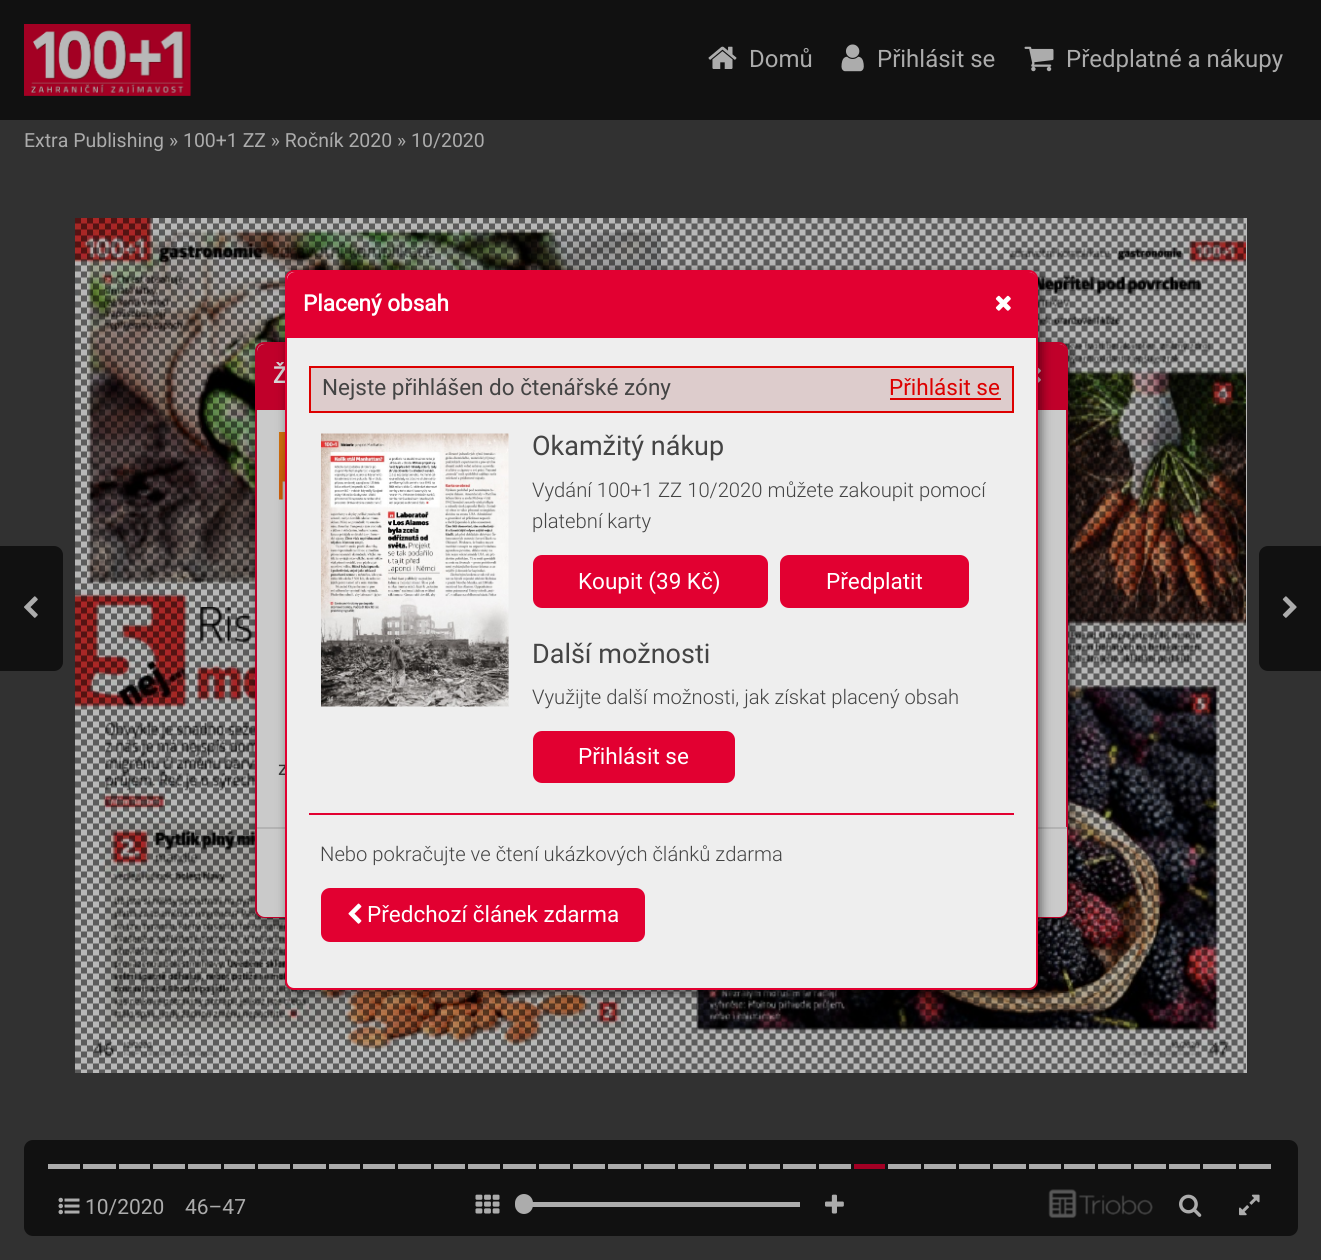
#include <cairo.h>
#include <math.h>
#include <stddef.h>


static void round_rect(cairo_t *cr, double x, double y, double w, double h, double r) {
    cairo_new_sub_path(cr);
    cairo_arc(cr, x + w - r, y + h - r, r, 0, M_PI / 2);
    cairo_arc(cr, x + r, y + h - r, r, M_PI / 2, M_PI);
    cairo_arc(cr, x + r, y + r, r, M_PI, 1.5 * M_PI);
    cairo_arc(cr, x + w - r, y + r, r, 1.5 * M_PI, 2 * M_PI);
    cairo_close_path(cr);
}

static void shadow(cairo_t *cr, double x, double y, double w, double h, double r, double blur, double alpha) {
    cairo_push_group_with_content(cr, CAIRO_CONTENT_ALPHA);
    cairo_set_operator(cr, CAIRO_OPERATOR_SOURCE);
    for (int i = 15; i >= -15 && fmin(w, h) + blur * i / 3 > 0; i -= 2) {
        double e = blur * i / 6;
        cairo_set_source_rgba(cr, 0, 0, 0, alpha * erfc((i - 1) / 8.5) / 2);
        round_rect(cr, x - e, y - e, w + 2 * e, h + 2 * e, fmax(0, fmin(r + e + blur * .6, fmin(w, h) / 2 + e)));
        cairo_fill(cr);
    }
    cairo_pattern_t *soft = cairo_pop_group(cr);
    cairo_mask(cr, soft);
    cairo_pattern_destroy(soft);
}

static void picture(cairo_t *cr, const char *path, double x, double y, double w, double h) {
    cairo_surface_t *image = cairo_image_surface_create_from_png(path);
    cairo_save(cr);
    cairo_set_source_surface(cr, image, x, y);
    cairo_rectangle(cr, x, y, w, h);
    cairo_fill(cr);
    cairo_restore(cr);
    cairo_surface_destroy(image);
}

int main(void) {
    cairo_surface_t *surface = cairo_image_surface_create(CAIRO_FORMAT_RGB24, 1321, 1260);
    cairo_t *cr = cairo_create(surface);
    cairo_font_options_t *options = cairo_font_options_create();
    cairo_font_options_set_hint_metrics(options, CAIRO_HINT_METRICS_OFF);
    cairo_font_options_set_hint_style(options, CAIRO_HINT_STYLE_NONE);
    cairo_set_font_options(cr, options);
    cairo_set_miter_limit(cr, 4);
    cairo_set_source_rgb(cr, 0.192, 0.192, 0.192);
    cairo_paint(cr);
    cairo_set_source_rgb(cr, 0.067, 0.067, 0.067);
    cairo_rectangle(cr, 0, 0, 1321, 120);
    cairo_fill(cr);
    picture(cr, "img1.png", 24, 24, 167, 72);
    picture(cr, "img2.png", 708, 46, 29, 23);
    cairo_select_font_face(cr, "Roboto", CAIRO_FONT_SLANT_NORMAL, CAIRO_FONT_WEIGHT_NORMAL);
    cairo_set_font_size(cr, 24);
    cairo_set_source_rgb(cr, 0.675, 0.675, 0.675);
    cairo_move_to(cr, 749, 67);
    cairo_show_text(cr, "Domů");
    picture(cr, "img3.png", 841, 44, 23, 28);
    cairo_move_to(cr, 877, 67);
    cairo_show_text(cr, "Přihlásit se");
    picture(cr, "img4.png", 1024, 46, 30, 26);
    cairo_move_to(cr, 1066, 67);
    cairo_show_text(cr, "Předplatné a nákupy");
    cairo_set_font_size(cr, 19.5);
    cairo_move_to(cr, 24, 147);
    cairo_show_text(cr, "Extra Publishing");
    cairo_move_to(cr, 169, 147);
    cairo_show_text(cr, "» 100+1 ZZ » Ročník 2020 » 10/2020");
    cairo_set_source_rgb(cr, 0.067, 0.067, 0.067);
    cairo_new_path(cr);
    cairo_move_to(cr, 0, 546);
    cairo_line_to(cr, 54, 546);
    cairo_curve_to(cr, 59, 546, 63, 550, 63, 555);
    cairo_line_to(cr, 63, 662);
    cairo_curve_to(cr, 63, 667, 59, 671, 54, 671);
    cairo_line_to(cr, 0, 671);
    cairo_close_path(cr);
    cairo_fill(cr);
    picture(cr, "img5.png", 24, 596, 14, 22);
    cairo_new_path(cr);
    cairo_move_to(cr, 1268, 546);
    cairo_line_to(cr, 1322, 546);
    cairo_line_to(cr, 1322, 671);
    cairo_line_to(cr, 1268, 671);
    cairo_curve_to(cr, 1263, 671, 1259, 667, 1259, 662);
    cairo_line_to(cr, 1259, 555);
    cairo_curve_to(cr, 1259, 550, 1263, 546, 1268, 546);
    cairo_close_path(cr);
    cairo_fill(cr);
    picture(cr, "img6.png", 1282, 596, 15, 22);
    round_rect(cr, 24, 1140, 1274, 96, 9);
    cairo_fill(cr);
    cairo_set_source_rgb(cr, 0.675, 0.675, 0.675);
    cairo_rectangle(cr, 48, 1164, 32, 5);
    cairo_fill(cr);
    cairo_rectangle(cr, 83, 1164, 33, 5);
    cairo_fill(cr);
    cairo_rectangle(cr, 119, 1164, 31, 5);
    cairo_fill(cr);
    cairo_rectangle(cr, 153, 1164, 32, 5);
    cairo_fill(cr);
    cairo_rectangle(cr, 188, 1164, 33, 5);
    cairo_fill(cr);
    cairo_rectangle(cr, 224, 1164, 31, 5);
    cairo_fill(cr);
    cairo_rectangle(cr, 258, 1164, 32, 5);
    cairo_fill(cr);
    cairo_rectangle(cr, 293, 1164, 33, 5);
    cairo_fill(cr);
    cairo_rectangle(cr, 329, 1164, 31, 5);
    cairo_fill(cr);
    cairo_rectangle(cr, 363, 1164, 32, 5);
    cairo_fill(cr);
    cairo_rectangle(cr, 398, 1164, 33, 5);
    cairo_fill(cr);
    cairo_rectangle(cr, 434, 1164, 31, 5);
    cairo_fill(cr);
    cairo_rectangle(cr, 468, 1164, 32, 5);
    cairo_fill(cr);
    cairo_rectangle(cr, 503, 1164, 33, 5);
    cairo_fill(cr);
    cairo_rectangle(cr, 539, 1164, 31, 5);
    cairo_fill(cr);
    cairo_rectangle(cr, 573, 1164, 32, 5);
    cairo_fill(cr);
    cairo_rectangle(cr, 608, 1164, 33, 5);
    cairo_fill(cr);
    cairo_rectangle(cr, 644, 1164, 31, 5);
    cairo_fill(cr);
    cairo_rectangle(cr, 678, 1164, 32, 5);
    cairo_fill(cr);
    cairo_rectangle(cr, 714, 1164, 32, 5);
    cairo_fill(cr);
    cairo_rectangle(cr, 749, 1164, 31, 5);
    cairo_fill(cr);
    cairo_rectangle(cr, 783, 1164, 33, 5);
    cairo_fill(cr);
    cairo_rectangle(cr, 819, 1164, 32, 5);
    cairo_fill(cr);
    cairo_rectangle(cr, 888, 1164, 33, 5);
    cairo_fill(cr);
    cairo_rectangle(cr, 924, 1164, 32, 5);
    cairo_fill(cr);
    cairo_rectangle(cr, 959, 1164, 31, 5);
    cairo_fill(cr);
    cairo_rectangle(cr, 993, 1164, 33, 5);
    cairo_fill(cr);
    cairo_rectangle(cr, 1029, 1164, 32, 5);
    cairo_fill(cr);
    cairo_rectangle(cr, 1064, 1164, 31, 5);
    cairo_fill(cr);
    cairo_rectangle(cr, 1098, 1164, 33, 5);
    cairo_fill(cr);
    cairo_rectangle(cr, 1134, 1164, 32, 5);
    cairo_fill(cr);
    cairo_rectangle(cr, 1169, 1164, 31, 5);
    cairo_fill(cr);
    cairo_rectangle(cr, 1203, 1164, 33, 5);
    cairo_fill(cr);
    cairo_rectangle(cr, 1239, 1164, 32, 5);
    cairo_fill(cr);
    cairo_set_source_rgb(cr, 0.639, 0, 0.141);
    cairo_rectangle(cr, 854, 1164, 31, 5);
    cairo_fill(cr);
    picture(cr, "img7.png", 58, 1197, 22, 18);
    cairo_set_font_size(cr, 21);
    cairo_set_source_rgb(cr, 0.675, 0.675, 0.675);
    cairo_move_to(cr, 85, 1214);
    cairo_show_text(cr, "10/2020");
    cairo_move_to(cr, 185, 1214);
    cairo_show_text(cr, "46–47");
    picture(cr, "img8.png", 475, 1194, 25, 20);
    cairo_rectangle(cr, 524, 1202, 276, 5);
    cairo_fill(cr);
    round_rect(cr, 515, 1194, 18, 20, 9);
    cairo_fill(cr);
    picture(cr, "img9.png", 825, 1194, 19, 20);
    picture(cr, "img10.png", 1048, 1189, 105, 29);
    picture(cr, "img11.png", 1179, 1194, 23, 23);
    picture(cr, "img12.png", 1239, 1194, 21, 22);
    cairo_set_source_rgb(cr, 0.722, 0.722, 0.722);
    cairo_rectangle(cr, 75, 218, 1172, 855);
    cairo_fill(cr);
    picture(cr, "img13.png", 75, 218, 587, 842);
    picture(cr, "img14.png", 75, 218, 586, 855);
    picture(cr, "img16.png", 661, 223, 585, 847);
    picture(cr, "img15.png", 661, 218, 585, 855);
    cairo_set_source_rgb(cr, 0, 0, 0);
    shadow(cr, 258, 345, 813, 576, 9, 5.5, 0.53);
    cairo_set_source_rgb(cr, 0.792, 0.792, 0.792);
    round_rect(cr, 256, 343, 811, 574, 8);
    cairo_fill_preserve(cr);
    cairo_set_source_rgb(cr, 0.753, 0, 0.165);
    cairo_stroke(cr);
    cairo_new_path(cr);
    cairo_move_to(cr, 265, 344);
    cairo_line_to(cr, 1059, 344);
    cairo_curve_to(cr, 1063.5, 344, 1067, 347.5, 1067, 352);
    cairo_line_to(cr, 1067, 410);
    cairo_line_to(cr, 257, 410);
    cairo_line_to(cr, 257, 352);
    cairo_curve_to(cr, 257, 347.5, 260.5, 344, 265, 344);
    cairo_close_path(cr);
    cairo_fill(cr);
    cairo_select_font_face(cr, "Roboto", CAIRO_FONT_SLANT_NORMAL, CAIRO_FONT_WEIGHT_BOLD);
    cairo_set_font_size(cr, 22.5);
    cairo_set_source_rgb(cr, 0.851, 0.851, 0.851);
    cairo_move_to(cr, 273, 383);
    cairo_show_text(cr, "Ž");
    picture(cr, "img17.png", 1038, 367, 3, 16);
    picture(cr, "img18.png", 279, 432, 6, 68);
    cairo_select_font_face(cr, "Roboto", CAIRO_FONT_SLANT_NORMAL, CAIRO_FONT_WEIGHT_NORMAL);
    cairo_set_font_size(cr, 19.5);
    cairo_set_source_rgb(cr, 0.227, 0.227, 0.227);
    cairo_move_to(cr, 278, 775);
    cairo_show_text(cr, "z");
    cairo_set_source_rgb(cr, 0.792, 0.792, 0.792);
    cairo_new_path(cr);
    cairo_move_to(cr, 257, 827);
    cairo_line_to(cr, 1067, 827);
    cairo_line_to(cr, 1067, 909);
    cairo_curve_to(cr, 1067, 913.5, 1063.5, 917, 1059, 917);
    cairo_line_to(cr, 265, 917);
    cairo_curve_to(cr, 260.5, 917, 257, 913.5, 257, 909);
    cairo_close_path(cr);
    cairo_fill(cr);
    cairo_set_source_rgb(cr, 0.702, 0.702, 0.702);
    cairo_rectangle(cr, 257, 827, 810, 2);
    cairo_fill(cr);
    cairo_set_source_rgb(cr, 0, 0, 0);
    shadow(cr, 288, 273, 753, 720, 9, 5.5, 0.53);
    cairo_set_source_rgb(cr, 0.933, 0.933, 0.933);
    round_rect(cr, 286, 271, 751, 718, 8);
    cairo_fill_preserve(cr);
    cairo_set_source_rgb(cr, 0.886, 0, 0.192);
    cairo_stroke(cr);
    cairo_new_path(cr);
    cairo_move_to(cr, 295, 272);
    cairo_line_to(cr, 1029, 272);
    cairo_curve_to(cr, 1033.5, 272, 1037, 275.5, 1037, 280);
    cairo_line_to(cr, 1037, 338);
    cairo_line_to(cr, 287, 338);
    cairo_line_to(cr, 287, 280);
    cairo_curve_to(cr, 287, 275.5, 290.5, 272, 295, 272);
    cairo_close_path(cr);
    cairo_fill(cr);
    cairo_select_font_face(cr, "Roboto", CAIRO_FONT_SLANT_NORMAL, CAIRO_FONT_WEIGHT_BOLD);
    cairo_set_font_size(cr, 22.5);
    cairo_set_source_rgb(cr, 1, 1, 1);
    cairo_move_to(cr, 303, 311);
    cairo_show_text(cr, "Placený obsah");
    picture(cr, "img19.png", 995, 295, 16, 16);
    cairo_set_source_rgb(cr, 0.867, 0.8, 0.8);
    cairo_rectangle(cr, 310, 367, 703, 45);
    cairo_fill_preserve(cr);
    cairo_set_source_rgb(cr, 0.867, 0, 0);
    cairo_stroke(cr);
    cairo_select_font_face(cr, "Roboto", CAIRO_FONT_SLANT_NORMAL, CAIRO_FONT_WEIGHT_NORMAL);
    cairo_set_source_rgb(cr, 0.267, 0.267, 0.267);
    cairo_move_to(cr, 322, 395);
    cairo_show_text(cr, "Nejste přihlášen do čtenářské zóny");
    cairo_set_source_rgb(cr, 0.867, 0, 0);
    cairo_move_to(cr, 889, 395);
    cairo_show_text(cr, "Přihlásit se");
    cairo_rectangle(cr, 890, 398, 111, 2);
    cairo_fill(cr);
    picture(cr, "img20.png", 321, 433, 188, 274);
    cairo_set_font_size(cr, 27);
    cairo_set_source_rgb(cr, 0.267, 0.267, 0.267);
    cairo_move_to(cr, 532, 455);
    cairo_show_text(cr, "Okamžitý nákup");
    cairo_select_font_face(cr, "Roboto Light", CAIRO_FONT_SLANT_NORMAL, CAIRO_FONT_WEIGHT_NORMAL);
    cairo_set_font_size(cr, 20.25);
    cairo_move_to(cr, 532, 497);
    cairo_show_text(cr, "Vydání 100+1 ZZ 10/2020 můžete zakoupit pomocí");
    cairo_move_to(cr, 532, 528);
    cairo_show_text(cr, "platební karty");
    cairo_set_source_rgb(cr, 0.886, 0, 0.192);
    round_rect(cr, 534, 556, 233, 51, 8);
    cairo_fill_preserve(cr);
    cairo_stroke(cr);
    cairo_select_font_face(cr, "Roboto", CAIRO_FONT_SLANT_NORMAL, CAIRO_FONT_WEIGHT_NORMAL);
    cairo_set_font_size(cr, 22.5);
    cairo_set_source_rgb(cr, 1, 1, 1);
    cairo_move_to(cr, 578, 589);
    cairo_show_text(cr, "Koupit (39 Kč)");
    cairo_set_source_rgb(cr, 0.886, 0, 0.192);
    round_rect(cr, 781, 556, 187, 51, 8);
    cairo_fill_preserve(cr);
    cairo_stroke(cr);
    cairo_set_source_rgb(cr, 1, 1, 1);
    cairo_move_to(cr, 826, 589);
    cairo_show_text(cr, "Předplatit");
    cairo_set_font_size(cr, 27);
    cairo_set_source_rgb(cr, 0.267, 0.267, 0.267);
    cairo_move_to(cr, 532, 663);
    cairo_show_text(cr, "Další možnosti");
    cairo_select_font_face(cr, "Roboto Light", CAIRO_FONT_SLANT_NORMAL, CAIRO_FONT_WEIGHT_NORMAL);
    cairo_set_font_size(cr, 20.25);
    cairo_move_to(cr, 532, 704);
    cairo_show_text(cr, "Využijte další možnosti, jak získat placený obsah");
    cairo_set_source_rgb(cr, 0.886, 0, 0.192);
    round_rect(cr, 534, 732, 200, 50, 8);
    cairo_fill_preserve(cr);
    cairo_stroke(cr);
    cairo_select_font_face(cr, "Roboto", CAIRO_FONT_SLANT_NORMAL, CAIRO_FONT_WEIGHT_NORMAL);
    cairo_set_font_size(cr, 22.5);
    cairo_set_source_rgb(cr, 1, 1, 1);
    cairo_move_to(cr, 578, 764);
    cairo_show_text(cr, "Přihlásit se");
    cairo_set_source_rgb(cr, 0.886, 0, 0.192);
    cairo_rectangle(cr, 309, 813, 705, 2);
    cairo_fill(cr);
    cairo_select_font_face(cr, "Roboto Light", CAIRO_FONT_SLANT_NORMAL, CAIRO_FONT_WEIGHT_NORMAL);
    cairo_set_font_size(cr, 20.25);
    cairo_set_source_rgb(cr, 0.267, 0.267, 0.267);
    cairo_move_to(cr, 320, 861);
    cairo_show_text(cr, "Nebo pokračujte ve čtení ukázkových článků zdarma");
    cairo_set_source_rgb(cr, 0.886, 0, 0.192);
    round_rect(cr, 322, 889, 322, 52, 8);
    cairo_fill_preserve(cr);
    cairo_stroke(cr);
    picture(cr, "img21.png", 348, 903, 14, 21);
    cairo_select_font_face(cr, "Roboto", CAIRO_FONT_SLANT_NORMAL, CAIRO_FONT_WEIGHT_NORMAL);
    cairo_set_font_size(cr, 22.5);
    cairo_set_source_rgb(cr, 1, 1, 1);
    cairo_move_to(cr, 367, 922);
    cairo_show_text(cr, "Předchozí článek zdarma");
    cairo_surface_write_to_png(surface, "page.png");
    cairo_font_options_destroy(options);
    cairo_destroy(cr);
    cairo_surface_destroy(surface);
    return 0;
}
